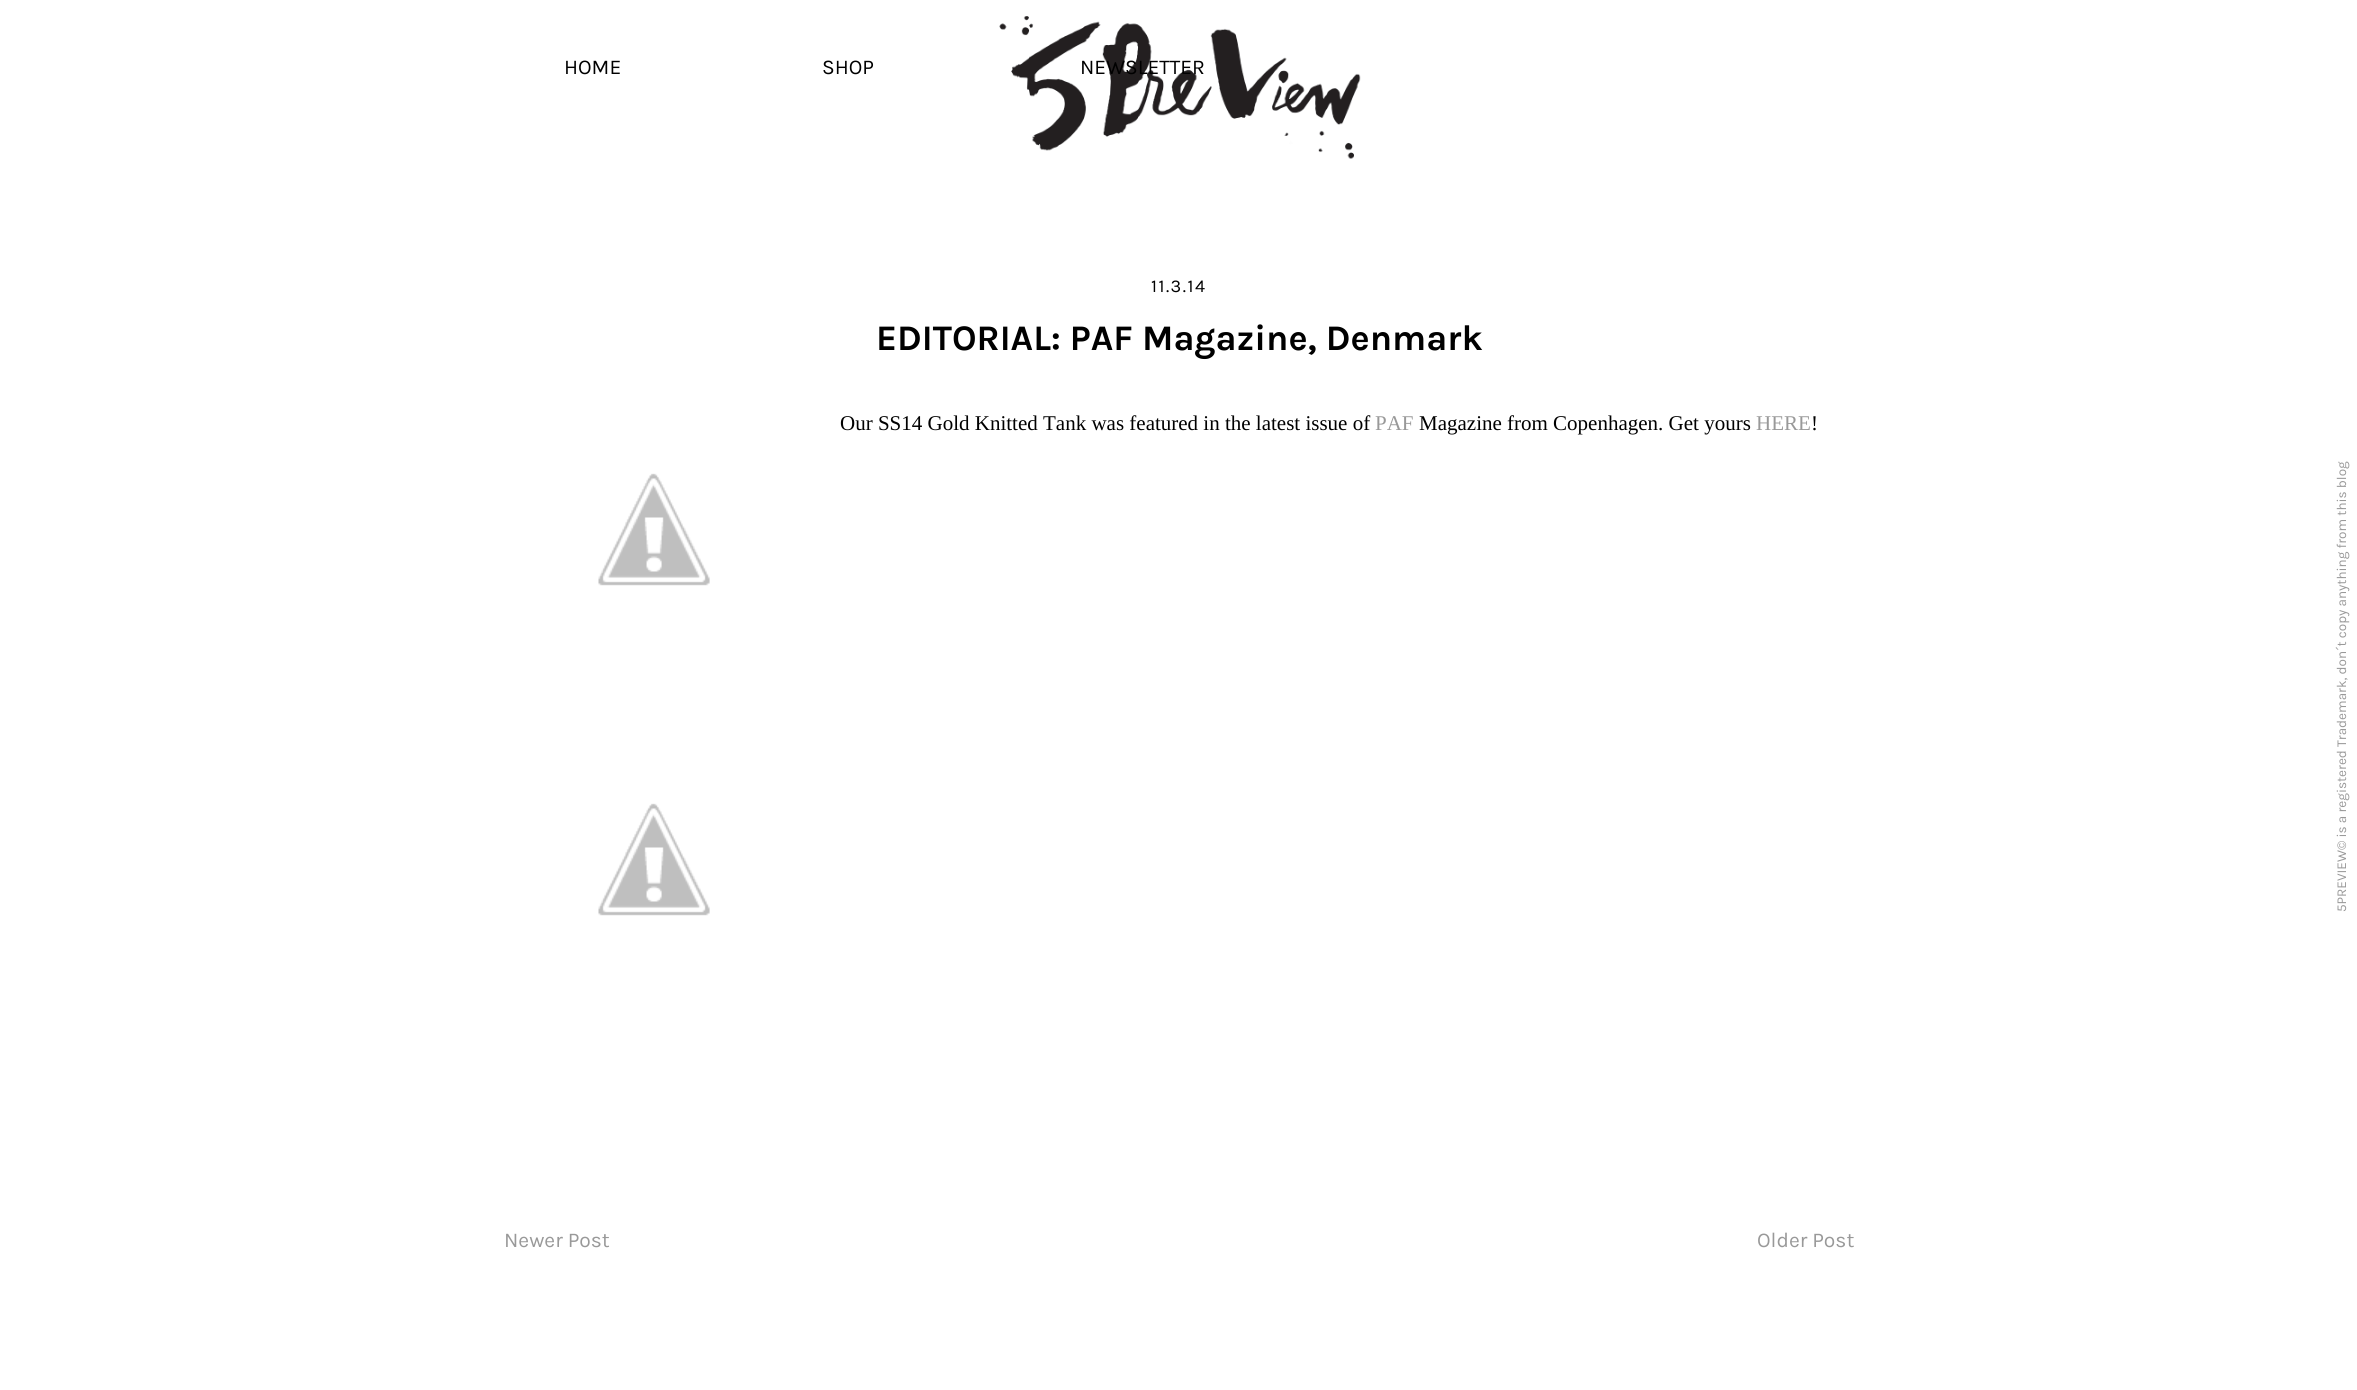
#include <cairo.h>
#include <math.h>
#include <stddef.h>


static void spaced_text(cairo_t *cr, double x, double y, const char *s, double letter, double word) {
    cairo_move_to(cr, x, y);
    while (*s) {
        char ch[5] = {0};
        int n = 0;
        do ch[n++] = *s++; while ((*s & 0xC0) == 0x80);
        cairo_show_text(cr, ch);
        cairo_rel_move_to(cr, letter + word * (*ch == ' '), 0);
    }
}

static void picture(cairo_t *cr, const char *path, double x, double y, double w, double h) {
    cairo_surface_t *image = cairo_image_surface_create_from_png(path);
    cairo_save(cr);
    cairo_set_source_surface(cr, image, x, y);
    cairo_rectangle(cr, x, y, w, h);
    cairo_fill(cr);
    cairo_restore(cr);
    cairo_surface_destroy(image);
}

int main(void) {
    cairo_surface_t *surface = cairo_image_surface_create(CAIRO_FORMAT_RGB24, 2357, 1390);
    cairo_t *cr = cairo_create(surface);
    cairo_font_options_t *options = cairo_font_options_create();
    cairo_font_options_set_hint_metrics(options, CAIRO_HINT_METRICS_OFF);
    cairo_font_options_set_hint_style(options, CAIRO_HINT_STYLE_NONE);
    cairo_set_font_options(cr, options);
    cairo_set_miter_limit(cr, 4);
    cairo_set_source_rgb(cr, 1, 1, 1);
    cairo_paint(cr);
    picture(cr, "img1.png", 999, 16, 362, 143);
    cairo_select_font_face(cr, "Karla", CAIRO_FONT_SLANT_NORMAL, CAIRO_FONT_WEIGHT_NORMAL);
    cairo_set_font_size(cr, 21);
    cairo_set_source_rgb(cr, 0, 0, 0);
    cairo_move_to(cr, 564, 74);
    cairo_show_text(cr, "HOME");
    cairo_move_to(cr, 822, 74);
    cairo_show_text(cr, "SHOP");
    cairo_move_to(cr, 1080, 74);
    cairo_show_text(cr, "NEWSLETTER");
    cairo_set_font_size(cr, 18);
    spaced_text(cr, 1151, 292, "11.3.14", 1.5, 0);
    cairo_select_font_face(cr, "Karla", CAIRO_FONT_SLANT_NORMAL, CAIRO_FONT_WEIGHT_BOLD);
    cairo_set_font_size(cr, 36);
    cairo_move_to(cr, 876, 350);
    cairo_show_text(cr, "EDITORIAL: PAF Magazine, Denmark");
    cairo_select_font_face(cr, "Liberation Serif", CAIRO_FONT_SLANT_NORMAL, CAIRO_FONT_WEIGHT_NORMAL);
    cairo_set_font_size(cr, 21);
    cairo_move_to(cr, 840, 430);
    cairo_show_text(cr, "Our SS14 Gold Knitted Tank was featured in the latest issue of");
    cairo_set_source_rgb(cr, 0.6, 0.6, 0.6);
    cairo_move_to(cr, 1375, 430);
    cairo_show_text(cr, "PAF");
    cairo_set_source_rgb(cr, 0, 0, 0);
    cairo_move_to(cr, 1419, 430);
    cairo_show_text(cr, "Magazine from Copenhagen. Get yours");
    cairo_set_source_rgb(cr, 0.6, 0.6, 0.6);
    cairo_move_to(cr, 1756, 430);
    cairo_show_text(cr, "HERE");
    cairo_set_source_rgb(cr, 0, 0, 0);
    cairo_move_to(cr, 1811, 430);
    cairo_show_text(cr, "!");
    picture(cr, "img2.png", 598, 473, 112, 113);
    picture(cr, "img2.png", 598, 803, 112, 113);
    cairo_select_font_face(cr, "Karla", CAIRO_FONT_SLANT_NORMAL, CAIRO_FONT_WEIGHT_NORMAL);
    cairo_set_source_rgb(cr, 0.6, 0.6, 0.6);
    cairo_move_to(cr, 504, 1247);
    cairo_show_text(cr, "Newer Post");
    cairo_move_to(cr, 1757, 1247);
    cairo_show_text(cr, "Older Post");
    cairo_set_font_size(cr, 13.5);
    cairo_save(cr);
    cairo_translate(cr, 2346, 912);
    cairo_rotate(cr, -90 * M_PI / 180);
    cairo_move_to(cr, 0, 0);
    cairo_show_text(cr, "5PREVIEW© is a registered Trademark, don´t copy anything from this blog");
    cairo_restore(cr);
    cairo_surface_write_to_png(surface, "page.png");
    cairo_font_options_destroy(options);
    cairo_destroy(cr);
    cairo_surface_destroy(surface);
    return 0;
}
